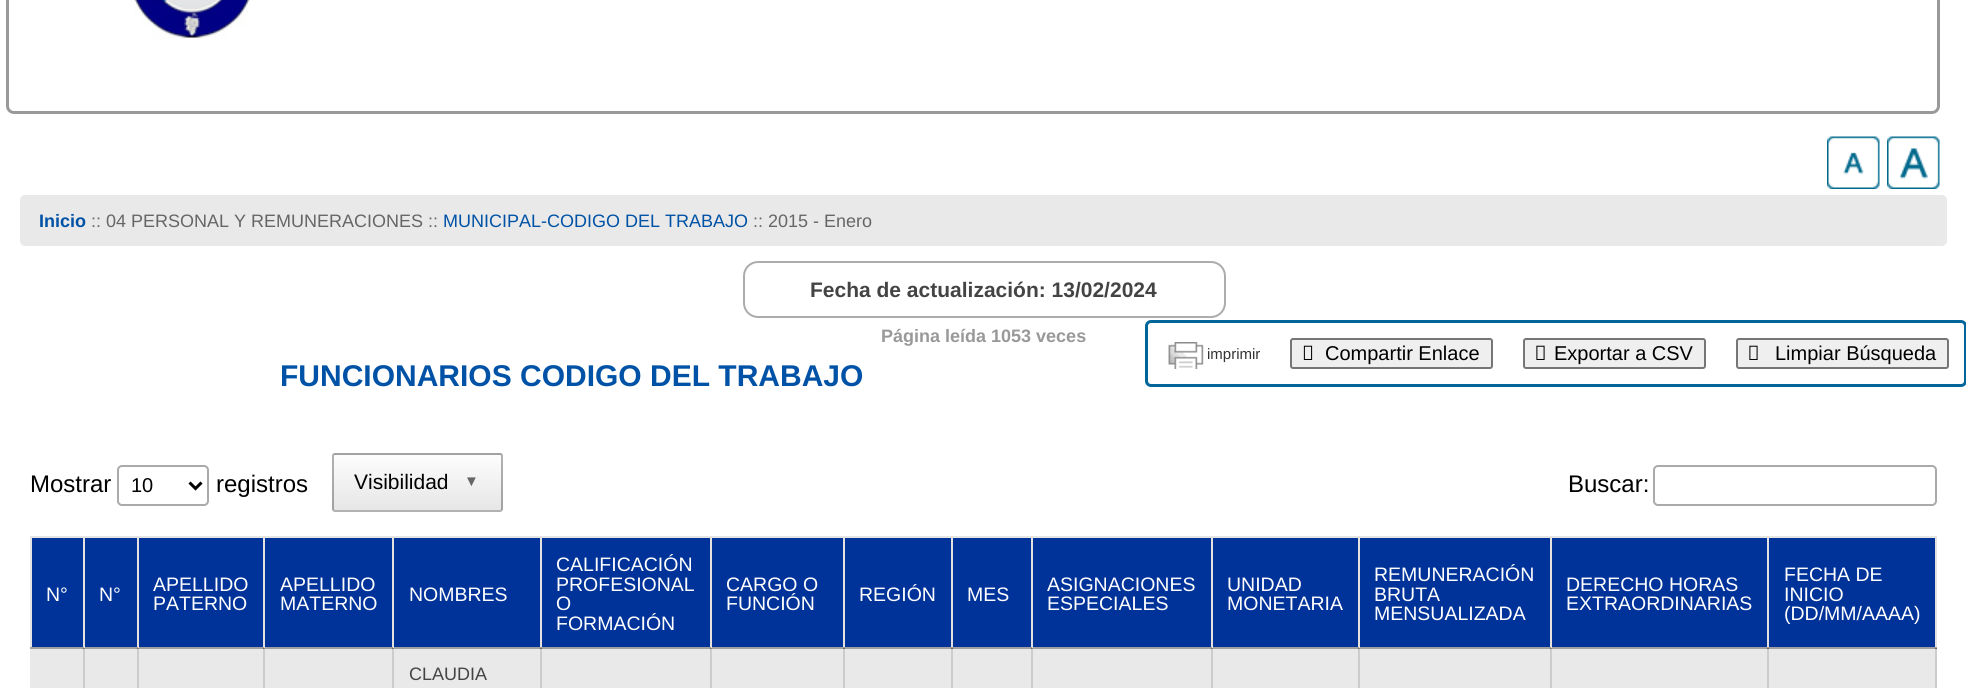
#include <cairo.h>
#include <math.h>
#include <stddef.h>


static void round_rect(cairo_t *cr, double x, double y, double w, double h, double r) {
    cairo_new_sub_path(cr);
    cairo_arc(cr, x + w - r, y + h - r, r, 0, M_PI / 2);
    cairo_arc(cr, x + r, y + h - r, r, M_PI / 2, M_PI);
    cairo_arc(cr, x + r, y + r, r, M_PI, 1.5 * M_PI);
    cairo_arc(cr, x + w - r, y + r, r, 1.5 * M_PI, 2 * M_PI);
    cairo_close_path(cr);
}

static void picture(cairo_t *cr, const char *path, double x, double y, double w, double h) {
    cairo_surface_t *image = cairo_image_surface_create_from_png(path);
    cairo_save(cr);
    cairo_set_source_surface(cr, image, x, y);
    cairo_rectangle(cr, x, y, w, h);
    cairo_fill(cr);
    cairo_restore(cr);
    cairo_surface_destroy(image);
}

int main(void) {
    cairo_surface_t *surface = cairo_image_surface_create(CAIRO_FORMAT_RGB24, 1966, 688);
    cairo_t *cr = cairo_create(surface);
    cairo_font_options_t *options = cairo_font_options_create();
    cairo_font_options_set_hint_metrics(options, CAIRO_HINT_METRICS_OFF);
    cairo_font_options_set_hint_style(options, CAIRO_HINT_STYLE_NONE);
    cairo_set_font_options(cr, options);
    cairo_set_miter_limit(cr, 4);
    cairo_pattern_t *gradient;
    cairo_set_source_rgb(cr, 1, 1, 1);
    cairo_paint(cr);
    round_rect(cr, 7.5, -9.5, 1931, 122, 6.5);
    cairo_set_source_rgb(cr, 0.6, 0.6, 0.6);
    cairo_set_line_width(cr, 3);
    cairo_stroke(cr);
    picture(cr, "img1.png", 134, 0, 116, 39);
    picture(cr, "img2.png", 1827, 136, 53, 53);
    picture(cr, "img3.png", 1887, 136, 53, 53);
    cairo_set_source_rgb(cr, 0.914, 0.914, 0.914);
    round_rect(cr, 20, 195, 1927, 51, 5);
    cairo_fill(cr);
    cairo_select_font_face(cr, "Liberation Sans", CAIRO_FONT_SLANT_NORMAL, CAIRO_FONT_WEIGHT_BOLD);
    cairo_set_font_size(cr, 18);
    cairo_set_source_rgb(cr, 0, 0.322, 0.651);
    cairo_move_to(cr, 39, 227);
    cairo_show_text(cr, "Inicio");
    cairo_select_font_face(cr, "Liberation Sans", CAIRO_FONT_SLANT_NORMAL, CAIRO_FONT_WEIGHT_NORMAL);
    cairo_set_source_rgb(cr, 0.4, 0.4, 0.4);
    cairo_move_to(cr, 91, 227);
    cairo_show_text(cr, ":: 04 PERSONAL Y REMUNERACIONES ::");
    cairo_set_source_rgb(cr, 0, 0.322, 0.651);
    cairo_move_to(cr, 443, 227);
    cairo_show_text(cr, "MUNICIPAL-CODIGO DEL TRABAJO");
    cairo_set_source_rgb(cr, 0.4, 0.4, 0.4);
    cairo_move_to(cr, 753, 227);
    cairo_show_text(cr, ":: 2015 - Enero");
    round_rect(cr, 744, 262, 481, 55, 14);
    cairo_set_source_rgb(cr, 0.675, 0.675, 0.675);
    cairo_set_line_width(cr, 2);
    cairo_stroke(cr);
    cairo_select_font_face(cr, "Liberation Sans", CAIRO_FONT_SLANT_NORMAL, CAIRO_FONT_WEIGHT_BOLD);
    cairo_set_font_size(cr, 21);
    cairo_set_source_rgb(cr, 0.267, 0.267, 0.267);
    cairo_move_to(cr, 810, 297);
    cairo_show_text(cr, "Fecha de actualización: 13/02/2024");
    cairo_set_font_size(cr, 18);
    cairo_set_source_rgb(cr, 0.6, 0.6, 0.6);
    cairo_move_to(cr, 881, 342);
    cairo_show_text(cr, "Página leída 1053 veces");
    round_rect(cr, 1146.5, 321.5, 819, 64, 4.5);
    cairo_set_source_rgb(cr, 0, 0.4, 0.6);
    cairo_set_line_width(cr, 3);
    cairo_stroke(cr);
    picture(cr, "img4.png", 1168, 342, 36, 27);
    cairo_select_font_face(cr, "Liberation Sans", CAIRO_FONT_SLANT_NORMAL, CAIRO_FONT_WEIGHT_NORMAL);
    cairo_set_font_size(cr, 15);
    cairo_set_source_rgb(cr, 0.2, 0.2, 0.2);
    cairo_move_to(cr, 1207, 359);
    cairo_show_text(cr, "imprimir");
    cairo_set_source_rgb(cr, 0.937, 0.937, 0.937);
    round_rect(cr, 1291, 339, 201, 29, 2);
    cairo_fill_preserve(cr);
    cairo_set_source_rgb(cr, 0.463, 0.463, 0.463);
    cairo_set_line_width(cr, 2);
    cairo_stroke(cr);
    picture(cr, "img5.png", 1303, 345, 10, 15);
    cairo_set_font_size(cr, 20);
    cairo_set_source_rgb(cr, 0, 0, 0);
    cairo_move_to(cr, 1325, 360);
    cairo_show_text(cr, "Compartir Enlace");
    cairo_set_source_rgb(cr, 0.937, 0.937, 0.937);
    round_rect(cr, 1524, 339, 181, 29, 2);
    cairo_fill_preserve(cr);
    cairo_set_source_rgb(cr, 0.463, 0.463, 0.463);
    cairo_stroke(cr);
    picture(cr, "img6.png", 1536, 345, 9, 15);
    cairo_set_source_rgb(cr, 0, 0, 0);
    cairo_move_to(cr, 1554, 360);
    cairo_show_text(cr, "Exportar a CSV");
    cairo_set_source_rgb(cr, 0.937, 0.937, 0.937);
    round_rect(cr, 1737, 339, 211, 29, 2);
    cairo_fill_preserve(cr);
    cairo_set_source_rgb(cr, 0.463, 0.463, 0.463);
    cairo_stroke(cr);
    picture(cr, "img6.png", 1749, 345, 9, 15);
    cairo_set_source_rgb(cr, 0, 0, 0);
    cairo_move_to(cr, 1775, 360);
    cairo_show_text(cr, "Limpiar Búsqueda");
    cairo_select_font_face(cr, "Liberation Sans", CAIRO_FONT_SLANT_NORMAL, CAIRO_FONT_WEIGHT_BOLD);
    cairo_set_font_size(cr, 30);
    cairo_set_source_rgb(cr, 0, 0.322, 0.651);
    cairo_move_to(cr, 280, 386);
    cairo_show_text(cr, "FUNCIONARIOS CODIGO DEL TRABAJO");
    cairo_select_font_face(cr, "Liberation Sans", CAIRO_FONT_SLANT_NORMAL, CAIRO_FONT_WEIGHT_NORMAL);
    cairo_set_font_size(cr, 24);
    cairo_set_source_rgb(cr, 0, 0, 0);
    cairo_move_to(cr, 30, 492);
    cairo_show_text(cr, "Mostrar");
    round_rect(cr, 118, 466, 90, 39, 4);
    cairo_set_source_rgb(cr, 0.667, 0.667, 0.667);
    cairo_stroke(cr);
    cairo_new_path(cr);
    cairo_move_to(cr, 189.5, 482.5);
    cairo_line_to(cr, 195.5, 488.5);
    cairo_line_to(cr, 201.5, 482.5);
    cairo_set_source_rgb(cr, 0, 0, 0);
    cairo_set_line_width(cr, 3);
    cairo_stroke(cr);
    cairo_set_font_size(cr, 20);
    cairo_move_to(cr, 131, 492);
    cairo_show_text(cr, "10");
    cairo_set_font_size(cr, 24);
    cairo_move_to(cr, 216, 492);
    cairo_show_text(cr, "registros");
    cairo_save(cr);
    round_rect(cr, 332, 453, 171, 59, 3);
    cairo_clip(cr);
    gradient = cairo_pattern_create_linear(417, 399, 417, 455);
    cairo_pattern_add_color_stop_rgba(gradient, 0, 0.992, 0.992, 0.992, 1);
    cairo_pattern_add_color_stop_rgba(gradient, 1, 0.902, 0.902, 0.902, 1);
    cairo_set_source(cr, gradient);
    cairo_pattern_destroy(gradient);
    cairo_rectangle(cr, 332, 453, 171, 2);
    cairo_fill(cr);
    gradient = cairo_pattern_create_linear(417, 455, 417, 510);
    cairo_pattern_add_color_stop_rgba(gradient, 0, 0.992, 0.992, 0.992, 1);
    cairo_pattern_add_color_stop_rgba(gradient, 1, 0.902, 0.902, 0.902, 1);
    cairo_set_source(cr, gradient);
    cairo_pattern_destroy(gradient);
    cairo_rectangle(cr, 332, 455, 171, 55);
    cairo_fill(cr);
    gradient = cairo_pattern_create_linear(417, 510, 417, 566);
    cairo_pattern_add_color_stop_rgba(gradient, 0, 0.992, 0.992, 0.992, 1);
    cairo_pattern_add_color_stop_rgba(gradient, 1, 0.902, 0.902, 0.902, 1);
    cairo_set_source(cr, gradient);
    cairo_pattern_destroy(gradient);
    cairo_rectangle(cr, 332, 510, 171, 2);
    cairo_fill(cr);
    cairo_restore(cr);
    round_rect(cr, 333, 454, 169, 57, 2);
    cairo_set_source_rgba(cr, 0, 0, 0, 0.3);
    cairo_set_line_width(cr, 2);
    cairo_stroke(cr);
    cairo_set_font_size(cr, 21);
    cairo_set_source_rgb(cr, 0, 0, 0);
    cairo_move_to(cr, 354, 489);
    cairo_show_text(cr, "Visibilidad");
    cairo_set_font_size(cr, 15);
    cairo_set_source_rgb(cr, 0.4, 0.4, 0.4);
    cairo_move_to(cr, 464, 486);
    cairo_show_text(cr, "▼");
    cairo_set_font_size(cr, 24);
    cairo_set_source_rgb(cr, 0, 0, 0);
    cairo_move_to(cr, 1568, 492);
    cairo_show_text(cr, "Buscar:");
    round_rect(cr, 1654, 466, 282, 39, 4);
    cairo_set_source_rgb(cr, 0.667, 0.667, 0.667);
    cairo_stroke(cr);
    cairo_set_source_rgb(cr, 0.898, 0.898, 0.894);
    cairo_rectangle(cr, 30, 536, 1907, 2);
    cairo_fill(cr);
    cairo_set_source_rgb(cr, 0.627, 0.627, 0.627);
    cairo_rectangle(cr, 30, 647, 1907, 2);
    cairo_fill(cr);
    cairo_set_source_rgb(cr, 0.898, 0.898, 0.894);
    cairo_rectangle(cr, 30, 536, 2, 112);
    cairo_fill(cr);
    cairo_set_source_rgb(cr, 0.627, 0.627, 0.627);
    cairo_rectangle(cr, 30, 647, 2, 1);
    cairo_fill(cr);
    cairo_set_source_rgb(cr, 0, 0.2, 0.6);
    cairo_rectangle(cr, 32, 538, 51, 109);
    cairo_fill(cr);
    cairo_set_source_rgb(cr, 0.914, 0.914, 0.914);
    cairo_rectangle(cr, 30, 649, 1905, 39);
    cairo_fill(cr);
    cairo_set_source_rgb(cr, 0.8, 0.8, 0.8);
    cairo_rectangle(cr, 83, 647, 2, 41);
    cairo_fill(cr);
    cairo_set_source_rgb(cr, 0.561, 0.561, 0.561);
    cairo_rectangle(cr, 83, 648, 2, 1);
    cairo_fill(cr);
    cairo_set_source_rgb(cr, 0.392, 0.392, 0.392);
    cairo_rectangle(cr, 83, 647, 1, 2);
    cairo_fill(cr);
    cairo_set_source_rgb(cr, 0.894, 0.882, 0.871);
    cairo_rectangle(cr, 83, 536, 2, 112);
    cairo_fill(cr);
    cairo_set_source_rgb(cr, 0.627, 0.62, 0.608);
    cairo_rectangle(cr, 83, 647, 1, 1);
    cairo_fill(cr);
    cairo_set_font_size(cr, 19.5);
    cairo_set_source_rgb(cr, 1, 1, 1);
    cairo_move_to(cr, 46, 601);
    cairo_show_text(cr, "N°");
    cairo_set_source_rgb(cr, 0, 0.2, 0.6);
    cairo_rectangle(cr, 85, 538, 52, 109);
    cairo_fill(cr);
    cairo_set_source_rgb(cr, 0.8, 0.8, 0.8);
    cairo_rectangle(cr, 137, 647, 2, 41);
    cairo_fill(cr);
    cairo_set_source_rgb(cr, 0.561, 0.561, 0.561);
    cairo_rectangle(cr, 137, 648, 2, 1);
    cairo_fill(cr);
    cairo_set_source_rgb(cr, 0.392, 0.392, 0.392);
    cairo_rectangle(cr, 137, 647, 1, 2);
    cairo_fill(cr);
    cairo_set_source_rgb(cr, 0.894, 0.882, 0.871);
    cairo_rectangle(cr, 137, 536, 2, 112);
    cairo_fill(cr);
    cairo_set_source_rgb(cr, 0.627, 0.62, 0.608);
    cairo_rectangle(cr, 137, 647, 1, 1);
    cairo_fill(cr);
    cairo_set_source_rgb(cr, 1, 1, 1);
    cairo_move_to(cr, 99, 601);
    cairo_show_text(cr, "N°");
    cairo_set_source_rgb(cr, 0, 0.2, 0.6);
    cairo_rectangle(cr, 139, 538, 124, 109);
    cairo_fill(cr);
    cairo_set_source_rgb(cr, 0.8, 0.8, 0.8);
    cairo_rectangle(cr, 263, 647, 2, 41);
    cairo_fill(cr);
    cairo_set_source_rgb(cr, 0.561, 0.561, 0.561);
    cairo_rectangle(cr, 263, 648, 2, 1);
    cairo_fill(cr);
    cairo_set_source_rgb(cr, 0.392, 0.392, 0.392);
    cairo_rectangle(cr, 263, 647, 1, 2);
    cairo_fill(cr);
    cairo_set_source_rgb(cr, 0.894, 0.882, 0.871);
    cairo_rectangle(cr, 263, 536, 2, 112);
    cairo_fill(cr);
    cairo_set_source_rgb(cr, 0.627, 0.62, 0.608);
    cairo_rectangle(cr, 263, 647, 1, 1);
    cairo_fill(cr);
    cairo_set_source_rgb(cr, 1, 1, 1);
    cairo_move_to(cr, 153, 591);
    cairo_show_text(cr, "APELLIDO");
    cairo_move_to(cr, 153, 610);
    cairo_show_text(cr, "PATERNO");
    cairo_set_source_rgb(cr, 0, 0.2, 0.6);
    cairo_rectangle(cr, 265, 538, 127, 109);
    cairo_fill(cr);
    cairo_set_source_rgb(cr, 0.8, 0.8, 0.8);
    cairo_rectangle(cr, 392, 647, 2, 41);
    cairo_fill(cr);
    cairo_set_source_rgb(cr, 0.561, 0.561, 0.561);
    cairo_rectangle(cr, 392, 648, 2, 1);
    cairo_fill(cr);
    cairo_set_source_rgb(cr, 0.392, 0.392, 0.392);
    cairo_rectangle(cr, 392, 647, 1, 2);
    cairo_fill(cr);
    cairo_set_source_rgb(cr, 0.894, 0.882, 0.871);
    cairo_rectangle(cr, 392, 536, 2, 112);
    cairo_fill(cr);
    cairo_set_source_rgb(cr, 0.627, 0.62, 0.608);
    cairo_rectangle(cr, 392, 647, 1, 1);
    cairo_fill(cr);
    cairo_set_source_rgb(cr, 1, 1, 1);
    cairo_move_to(cr, 280, 591);
    cairo_show_text(cr, "APELLIDO");
    cairo_move_to(cr, 280, 610);
    cairo_show_text(cr, "MATERNO");
    cairo_set_source_rgb(cr, 0, 0.2, 0.6);
    cairo_rectangle(cr, 394, 538, 146, 109);
    cairo_fill(cr);
    cairo_set_source_rgb(cr, 0.8, 0.8, 0.8);
    cairo_rectangle(cr, 540, 647, 2, 41);
    cairo_fill(cr);
    cairo_set_source_rgb(cr, 0.894, 0.882, 0.871);
    cairo_rectangle(cr, 540, 536, 2, 112);
    cairo_fill(cr);
    cairo_set_source_rgb(cr, 0.627, 0.62, 0.608);
    cairo_rectangle(cr, 540, 647, 2, 1);
    cairo_fill(cr);
    cairo_set_source_rgb(cr, 1, 1, 1);
    cairo_move_to(cr, 409, 601);
    cairo_show_text(cr, "NOMBRES");
    cairo_set_source_rgb(cr, 0, 0.2, 0.6);
    cairo_rectangle(cr, 542, 538, 168, 109);
    cairo_fill(cr);
    cairo_set_source_rgb(cr, 0.8, 0.8, 0.8);
    cairo_rectangle(cr, 710, 647, 2, 41);
    cairo_fill(cr);
    cairo_set_source_rgb(cr, 0.561, 0.561, 0.561);
    cairo_rectangle(cr, 710, 648, 2, 1);
    cairo_fill(cr);
    cairo_set_source_rgb(cr, 0.392, 0.392, 0.392);
    cairo_rectangle(cr, 710, 647, 1, 2);
    cairo_fill(cr);
    cairo_set_source_rgb(cr, 0.894, 0.882, 0.871);
    cairo_rectangle(cr, 710, 536, 2, 112);
    cairo_fill(cr);
    cairo_set_source_rgb(cr, 0.627, 0.62, 0.608);
    cairo_rectangle(cr, 710, 647, 1, 1);
    cairo_fill(cr);
    cairo_set_source_rgb(cr, 1, 1, 1);
    cairo_move_to(cr, 556, 571);
    cairo_show_text(cr, "CALIFICACIÓN");
    cairo_move_to(cr, 556, 591);
    cairo_show_text(cr, "PROFESIONAL");
    cairo_move_to(cr, 556, 610);
    cairo_show_text(cr, "O");
    cairo_move_to(cr, 556, 630);
    cairo_show_text(cr, "FORMACIÓN");
    cairo_set_source_rgb(cr, 0, 0.2, 0.6);
    cairo_rectangle(cr, 712, 538, 131, 109);
    cairo_fill(cr);
    cairo_set_source_rgb(cr, 0.8, 0.8, 0.8);
    cairo_rectangle(cr, 843, 647, 2, 41);
    cairo_fill(cr);
    cairo_set_source_rgb(cr, 0.894, 0.882, 0.871);
    cairo_rectangle(cr, 843, 536, 2, 112);
    cairo_fill(cr);
    cairo_set_source_rgb(cr, 0.627, 0.62, 0.608);
    cairo_rectangle(cr, 843, 647, 2, 1);
    cairo_fill(cr);
    cairo_set_source_rgb(cr, 1, 1, 1);
    cairo_move_to(cr, 726, 591);
    cairo_show_text(cr, "CARGO O");
    cairo_move_to(cr, 726, 610);
    cairo_show_text(cr, "FUNCIÓN");
    cairo_set_source_rgb(cr, 0, 0.2, 0.6);
    cairo_rectangle(cr, 845, 538, 106, 109);
    cairo_fill(cr);
    cairo_set_source_rgb(cr, 0.8, 0.8, 0.8);
    cairo_rectangle(cr, 951, 647, 2, 41);
    cairo_fill(cr);
    cairo_set_source_rgb(cr, 0.894, 0.882, 0.871);
    cairo_rectangle(cr, 951, 536, 2, 112);
    cairo_fill(cr);
    cairo_set_source_rgb(cr, 0.627, 0.62, 0.608);
    cairo_rectangle(cr, 951, 647, 2, 1);
    cairo_fill(cr);
    cairo_set_source_rgb(cr, 1, 1, 1);
    cairo_move_to(cr, 859, 601);
    cairo_show_text(cr, "REGIÓN");
    cairo_set_source_rgb(cr, 0, 0.2, 0.6);
    cairo_rectangle(cr, 953, 538, 78, 109);
    cairo_fill(cr);
    cairo_set_source_rgb(cr, 0.8, 0.8, 0.8);
    cairo_rectangle(cr, 1031, 647, 2, 41);
    cairo_fill(cr);
    cairo_set_source_rgb(cr, 0.561, 0.561, 0.561);
    cairo_rectangle(cr, 1031, 648, 2, 1);
    cairo_fill(cr);
    cairo_set_source_rgb(cr, 0.392, 0.392, 0.392);
    cairo_rectangle(cr, 1031, 647, 1, 2);
    cairo_fill(cr);
    cairo_set_source_rgb(cr, 0.894, 0.882, 0.871);
    cairo_rectangle(cr, 1031, 536, 2, 112);
    cairo_fill(cr);
    cairo_set_source_rgb(cr, 0.627, 0.62, 0.608);
    cairo_rectangle(cr, 1031, 647, 1, 1);
    cairo_fill(cr);
    cairo_set_source_rgb(cr, 1, 1, 1);
    cairo_move_to(cr, 967, 601);
    cairo_show_text(cr, "MES");
    cairo_set_source_rgb(cr, 0, 0.2, 0.6);
    cairo_rectangle(cr, 1033, 538, 178, 109);
    cairo_fill(cr);
    cairo_set_source_rgb(cr, 0.8, 0.8, 0.8);
    cairo_rectangle(cr, 1211, 647, 2, 41);
    cairo_fill(cr);
    cairo_set_source_rgb(cr, 0.561, 0.561, 0.561);
    cairo_rectangle(cr, 1211, 648, 2, 1);
    cairo_fill(cr);
    cairo_set_source_rgb(cr, 0.392, 0.392, 0.392);
    cairo_rectangle(cr, 1211, 647, 1, 2);
    cairo_fill(cr);
    cairo_set_source_rgb(cr, 0.894, 0.882, 0.871);
    cairo_rectangle(cr, 1211, 536, 2, 112);
    cairo_fill(cr);
    cairo_set_source_rgb(cr, 0.627, 0.62, 0.608);
    cairo_rectangle(cr, 1211, 647, 1, 1);
    cairo_fill(cr);
    cairo_set_source_rgb(cr, 1, 1, 1);
    cairo_move_to(cr, 1047, 591);
    cairo_show_text(cr, "ASIGNACIONES");
    cairo_move_to(cr, 1047, 610);
    cairo_show_text(cr, "ESPECIALES");
    cairo_set_source_rgb(cr, 0, 0.2, 0.6);
    cairo_rectangle(cr, 1213, 538, 145, 109);
    cairo_fill(cr);
    cairo_set_source_rgb(cr, 0.8, 0.8, 0.8);
    cairo_rectangle(cr, 1358, 647, 2, 41);
    cairo_fill(cr);
    cairo_set_source_rgb(cr, 0.561, 0.561, 0.561);
    cairo_rectangle(cr, 1358, 648, 2, 1);
    cairo_fill(cr);
    cairo_set_source_rgb(cr, 0.392, 0.392, 0.392);
    cairo_rectangle(cr, 1358, 647, 1, 2);
    cairo_fill(cr);
    cairo_set_source_rgb(cr, 0.894, 0.882, 0.871);
    cairo_rectangle(cr, 1358, 536, 2, 112);
    cairo_fill(cr);
    cairo_set_source_rgb(cr, 0.627, 0.62, 0.608);
    cairo_rectangle(cr, 1358, 647, 1, 1);
    cairo_fill(cr);
    cairo_set_source_rgb(cr, 1, 1, 1);
    cairo_move_to(cr, 1227, 591);
    cairo_show_text(cr, "UNIDAD");
    cairo_move_to(cr, 1227, 610);
    cairo_show_text(cr, "MONETARIA");
    cairo_set_source_rgb(cr, 0, 0.2, 0.6);
    cairo_rectangle(cr, 1360, 538, 190, 109);
    cairo_fill(cr);
    cairo_set_source_rgb(cr, 0.8, 0.8, 0.8);
    cairo_rectangle(cr, 1550, 647, 2, 41);
    cairo_fill(cr);
    cairo_set_source_rgb(cr, 0.561, 0.561, 0.561);
    cairo_rectangle(cr, 1550, 648, 2, 1);
    cairo_fill(cr);
    cairo_set_source_rgb(cr, 0.392, 0.392, 0.392);
    cairo_rectangle(cr, 1550, 647, 1, 2);
    cairo_fill(cr);
    cairo_set_source_rgb(cr, 0.894, 0.882, 0.871);
    cairo_rectangle(cr, 1550, 536, 2, 112);
    cairo_fill(cr);
    cairo_set_source_rgb(cr, 0.627, 0.62, 0.608);
    cairo_rectangle(cr, 1550, 647, 1, 1);
    cairo_fill(cr);
    cairo_set_source_rgb(cr, 1, 1, 1);
    cairo_move_to(cr, 1374, 581);
    cairo_show_text(cr, "REMUNERACIÓN");
    cairo_move_to(cr, 1374, 601);
    cairo_show_text(cr, "BRUTA");
    cairo_move_to(cr, 1374, 620);
    cairo_show_text(cr, "MENSUALIZADA");
    cairo_set_source_rgb(cr, 0, 0.2, 0.6);
    cairo_rectangle(cr, 1552, 538, 215, 109);
    cairo_fill(cr);
    cairo_set_source_rgb(cr, 0.8, 0.8, 0.8);
    cairo_rectangle(cr, 1767, 647, 2, 41);
    cairo_fill(cr);
    cairo_set_source_rgb(cr, 0.894, 0.882, 0.871);
    cairo_rectangle(cr, 1767, 536, 2, 112);
    cairo_fill(cr);
    cairo_set_source_rgb(cr, 0.627, 0.62, 0.608);
    cairo_rectangle(cr, 1767, 647, 2, 1);
    cairo_fill(cr);
    cairo_set_source_rgb(cr, 1, 1, 1);
    cairo_move_to(cr, 1566, 591);
    cairo_show_text(cr, "DERECHO HORAS");
    cairo_move_to(cr, 1566, 610);
    cairo_show_text(cr, "EXTRAORDINARIAS");
    cairo_set_source_rgb(cr, 0, 0.2, 0.6);
    cairo_rectangle(cr, 1769, 538, 166, 109);
    cairo_fill(cr);
    cairo_set_source_rgb(cr, 0.8, 0.8, 0.8);
    cairo_rectangle(cr, 1935, 647, 2, 41);
    cairo_fill(cr);
    cairo_set_source_rgb(cr, 0.894, 0.882, 0.871);
    cairo_rectangle(cr, 1935, 536, 2, 112);
    cairo_fill(cr);
    cairo_set_source_rgb(cr, 0.627, 0.62, 0.608);
    cairo_rectangle(cr, 1935, 647, 2, 1);
    cairo_fill(cr);
    cairo_set_source_rgb(cr, 1, 1, 1);
    cairo_move_to(cr, 1784, 581);
    cairo_show_text(cr, "FECHA DE");
    cairo_move_to(cr, 1784, 601);
    cairo_show_text(cr, "INICIO");
    cairo_move_to(cr, 1784, 620);
    cairo_show_text(cr, "(DD/MM/AAAA)");
    cairo_set_source_rgb(cr, 0.392, 0.392, 0.392);
    cairo_rectangle(cr, 1935, 648, 2, 1);
    cairo_fill(cr);
    cairo_rectangle(cr, 540, 648, 2, 1);
    cairo_fill(cr);
    cairo_set_font_size(cr, 18);
    cairo_set_source_rgb(cr, 0.267, 0.267, 0.267);
    cairo_move_to(cr, 409, 680);
    cairo_show_text(cr, "CLAUDIA");
    cairo_set_source_rgb(cr, 0.392, 0.392, 0.392);
    cairo_rectangle(cr, 843, 648, 2, 1);
    cairo_fill(cr);
    cairo_rectangle(cr, 951, 648, 2, 1);
    cairo_fill(cr);
    cairo_rectangle(cr, 1767, 648, 2, 1);
    cairo_fill(cr);
    cairo_surface_write_to_png(surface, "page.png");
    cairo_font_options_destroy(options);
    cairo_destroy(cr);
    cairo_surface_destroy(surface);
    return 0;
}
